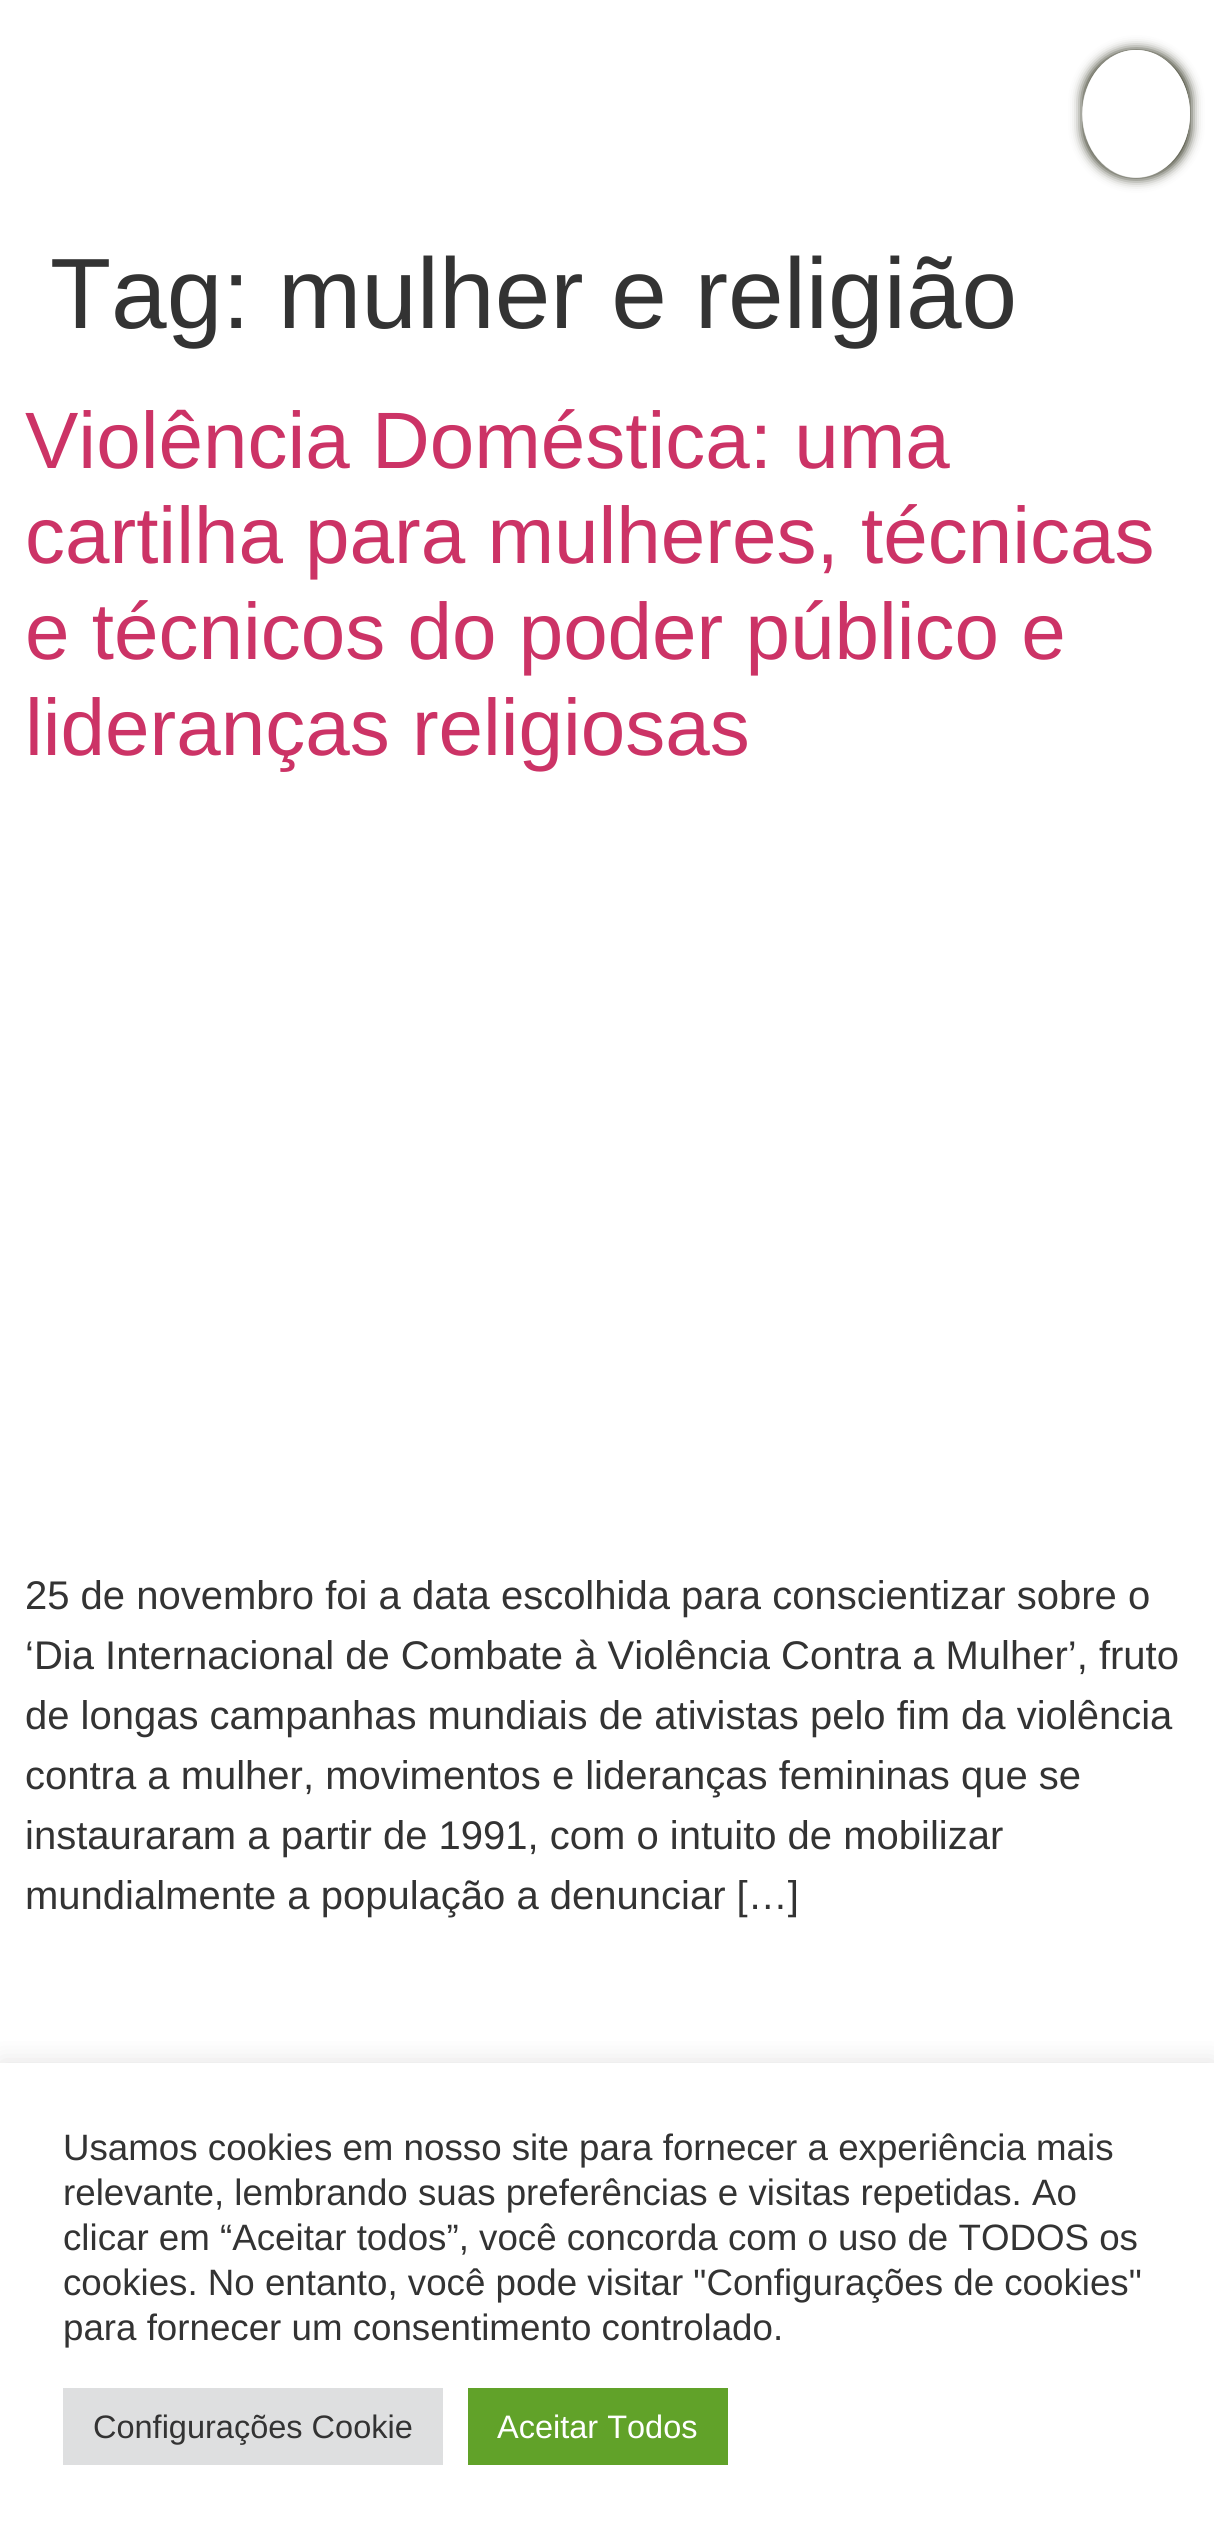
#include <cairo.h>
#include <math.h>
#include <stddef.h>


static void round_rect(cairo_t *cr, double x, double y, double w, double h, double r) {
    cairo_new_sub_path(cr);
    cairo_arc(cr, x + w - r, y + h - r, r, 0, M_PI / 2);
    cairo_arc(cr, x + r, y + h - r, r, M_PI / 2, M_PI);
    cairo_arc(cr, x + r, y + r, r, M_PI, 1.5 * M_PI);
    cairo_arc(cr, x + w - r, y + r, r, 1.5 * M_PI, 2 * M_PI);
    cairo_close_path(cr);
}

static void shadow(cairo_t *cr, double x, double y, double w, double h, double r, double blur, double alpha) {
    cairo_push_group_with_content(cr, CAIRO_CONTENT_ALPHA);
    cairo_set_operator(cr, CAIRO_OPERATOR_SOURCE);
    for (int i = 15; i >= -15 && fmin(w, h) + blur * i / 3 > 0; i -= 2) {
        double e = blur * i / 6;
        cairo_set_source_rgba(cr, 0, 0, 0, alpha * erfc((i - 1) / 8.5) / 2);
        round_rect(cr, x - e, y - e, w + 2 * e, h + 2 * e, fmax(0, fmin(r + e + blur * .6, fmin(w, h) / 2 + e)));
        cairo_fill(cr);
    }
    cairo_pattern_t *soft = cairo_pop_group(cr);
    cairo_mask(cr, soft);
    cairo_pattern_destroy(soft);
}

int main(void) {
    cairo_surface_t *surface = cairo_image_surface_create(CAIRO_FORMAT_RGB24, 1214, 2540);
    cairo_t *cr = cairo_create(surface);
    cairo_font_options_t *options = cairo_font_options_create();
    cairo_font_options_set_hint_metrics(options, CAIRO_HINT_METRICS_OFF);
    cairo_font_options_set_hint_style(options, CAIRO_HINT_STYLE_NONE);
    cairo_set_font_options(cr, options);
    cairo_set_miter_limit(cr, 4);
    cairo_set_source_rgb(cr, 1, 1, 1);
    cairo_paint(cr);
    cairo_save(cr);
    cairo_set_fill_rule(cr, CAIRO_FILL_RULE_EVEN_ODD);
    cairo_new_path(cr);
    cairo_move_to(cr, 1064, 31);
    cairo_line_to(cr, 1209, 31);
    cairo_line_to(cr, 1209, 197);
    cairo_line_to(cr, 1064, 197);
    cairo_close_path(cr);
    cairo_move_to(cr, 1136, 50);
    cairo_curve_to(cr, 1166, 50, 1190, 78.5, 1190, 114);
    cairo_curve_to(cr, 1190, 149, 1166, 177.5, 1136, 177.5);
    cairo_curve_to(cr, 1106.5, 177.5, 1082.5, 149, 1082.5, 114);
    cairo_curve_to(cr, 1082.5, 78.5, 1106.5, 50, 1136, 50);
    cairo_close_path(cr);
    cairo_clip(cr);
    cairo_set_source_rgb(cr, 0.082, 0.086, 0);
    shadow(cr, 1083, 50, 107, 128, 53.5, 6, 1);
    cairo_restore(cr);
    cairo_set_source_rgba(cr, 1, 1, 1, 0.61);
    cairo_new_path(cr);
    cairo_move_to(cr, 1136, 50);
    cairo_curve_to(cr, 1166, 50, 1190, 78.5, 1190, 114);
    cairo_curve_to(cr, 1190, 149.5, 1166, 178, 1136, 178);
    cairo_curve_to(cr, 1106, 178, 1082, 149.5, 1082, 114);
    cairo_curve_to(cr, 1082, 78.5, 1106, 50, 1136, 50);
    cairo_close_path(cr);
    cairo_fill(cr);
    cairo_select_font_face(cr, "Liberation Sans", CAIRO_FONT_SLANT_NORMAL, CAIRO_FONT_WEIGHT_NORMAL);
    cairo_set_font_size(cr, 100);
    cairo_set_source_rgb(cr, 0.2, 0.2, 0.2);
    cairo_move_to(cr, 50, 328);
    cairo_show_text(cr, "Tag: mulher e religião");
    cairo_set_font_size(cr, 80);
    cairo_set_source_rgb(cr, 0.8, 0.2, 0.4);
    cairo_move_to(cr, 25, 468);
    cairo_show_text(cr, "Violência Doméstica: uma");
    cairo_move_to(cr, 25, 563);
    cairo_show_text(cr, "cartilha para mulheres, técnicas");
    cairo_move_to(cr, 25, 659);
    cairo_show_text(cr, "e técnicos do poder público e");
    cairo_move_to(cr, 25, 755);
    cairo_show_text(cr, "lideranças religiosas");
    cairo_set_font_size(cr, 40);
    cairo_set_source_rgb(cr, 0.2, 0.2, 0.2);
    cairo_move_to(cr, 25, 1609);
    cairo_show_text(cr, "25 de novembro foi a data escolhida para conscientizar sobre o");
    cairo_move_to(cr, 25, 1669);
    cairo_show_text(cr, "‘Dia Internacional de Combate à Violência Contra a Mulher’, fruto");
    cairo_move_to(cr, 25, 1729);
    cairo_show_text(cr, "de longas campanhas mundiais de ativistas pelo fim da violência");
    cairo_move_to(cr, 25, 1789);
    cairo_show_text(cr, "contra a mulher, movimentos e lideranças femininas que se");
    cairo_move_to(cr, 25, 1849);
    cairo_show_text(cr, "instauraram a partir de 1991, com o intuito de mobilizar");
    cairo_move_to(cr, 25, 1909);
    cairo_show_text(cr, "mundialmente a população a denunciar […]");
    cairo_save(cr);
    cairo_rectangle(cr, 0, 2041, 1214, 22);
    cairo_clip(cr);
    cairo_set_source_rgb(cr, 0.675, 0.671, 0.671);
    shadow(cr, 0, 2060, 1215, 478, 0, 12.5, 0.3);
    cairo_restore(cr);
    cairo_set_font_size(cr, 36.7);
    cairo_move_to(cr, 63, 2160);
    cairo_show_text(cr, "Usamos cookies em nosso site para fornecer a experiência mais");
    cairo_move_to(cr, 63, 2205);
    cairo_show_text(cr, "relevante, lembrando suas preferências e visitas repetidas. Ao");
    cairo_move_to(cr, 63, 2250);
    cairo_show_text(cr, "clicar em “Aceitar todos”, você concorda com o uso de TODOS os");
    cairo_move_to(cr, 63, 2295);
    cairo_show_text(cr, "cookies. No entanto, você pode visitar \"Configurações de cookies\"");
    cairo_move_to(cr, 63, 2340);
    cairo_show_text(cr, "para fornecer um consentimento controlado.");
    cairo_set_source_rgb(cr, 0.871, 0.875, 0.878);
    cairo_rectangle(cr, 63, 2388, 380, 77);
    cairo_fill(cr);
    cairo_set_font_size(cr, 32.5);
    cairo_set_source_rgb(cr, 0.2, 0.2, 0.2);
    cairo_move_to(cr, 93, 2438);
    cairo_show_text(cr, "Configurações Cookie");
    cairo_set_source_rgb(cr, 0.38, 0.635, 0.161);
    cairo_rectangle(cr, 468, 2388, 260, 77);
    cairo_fill(cr);
    cairo_set_source_rgb(cr, 1, 1, 1);
    cairo_move_to(cr, 497, 2438);
    cairo_show_text(cr, "Aceitar Todos");
    cairo_surface_write_to_png(surface, "page.png");
    cairo_font_options_destroy(options);
    cairo_destroy(cr);
    cairo_surface_destroy(surface);
    return 0;
}
